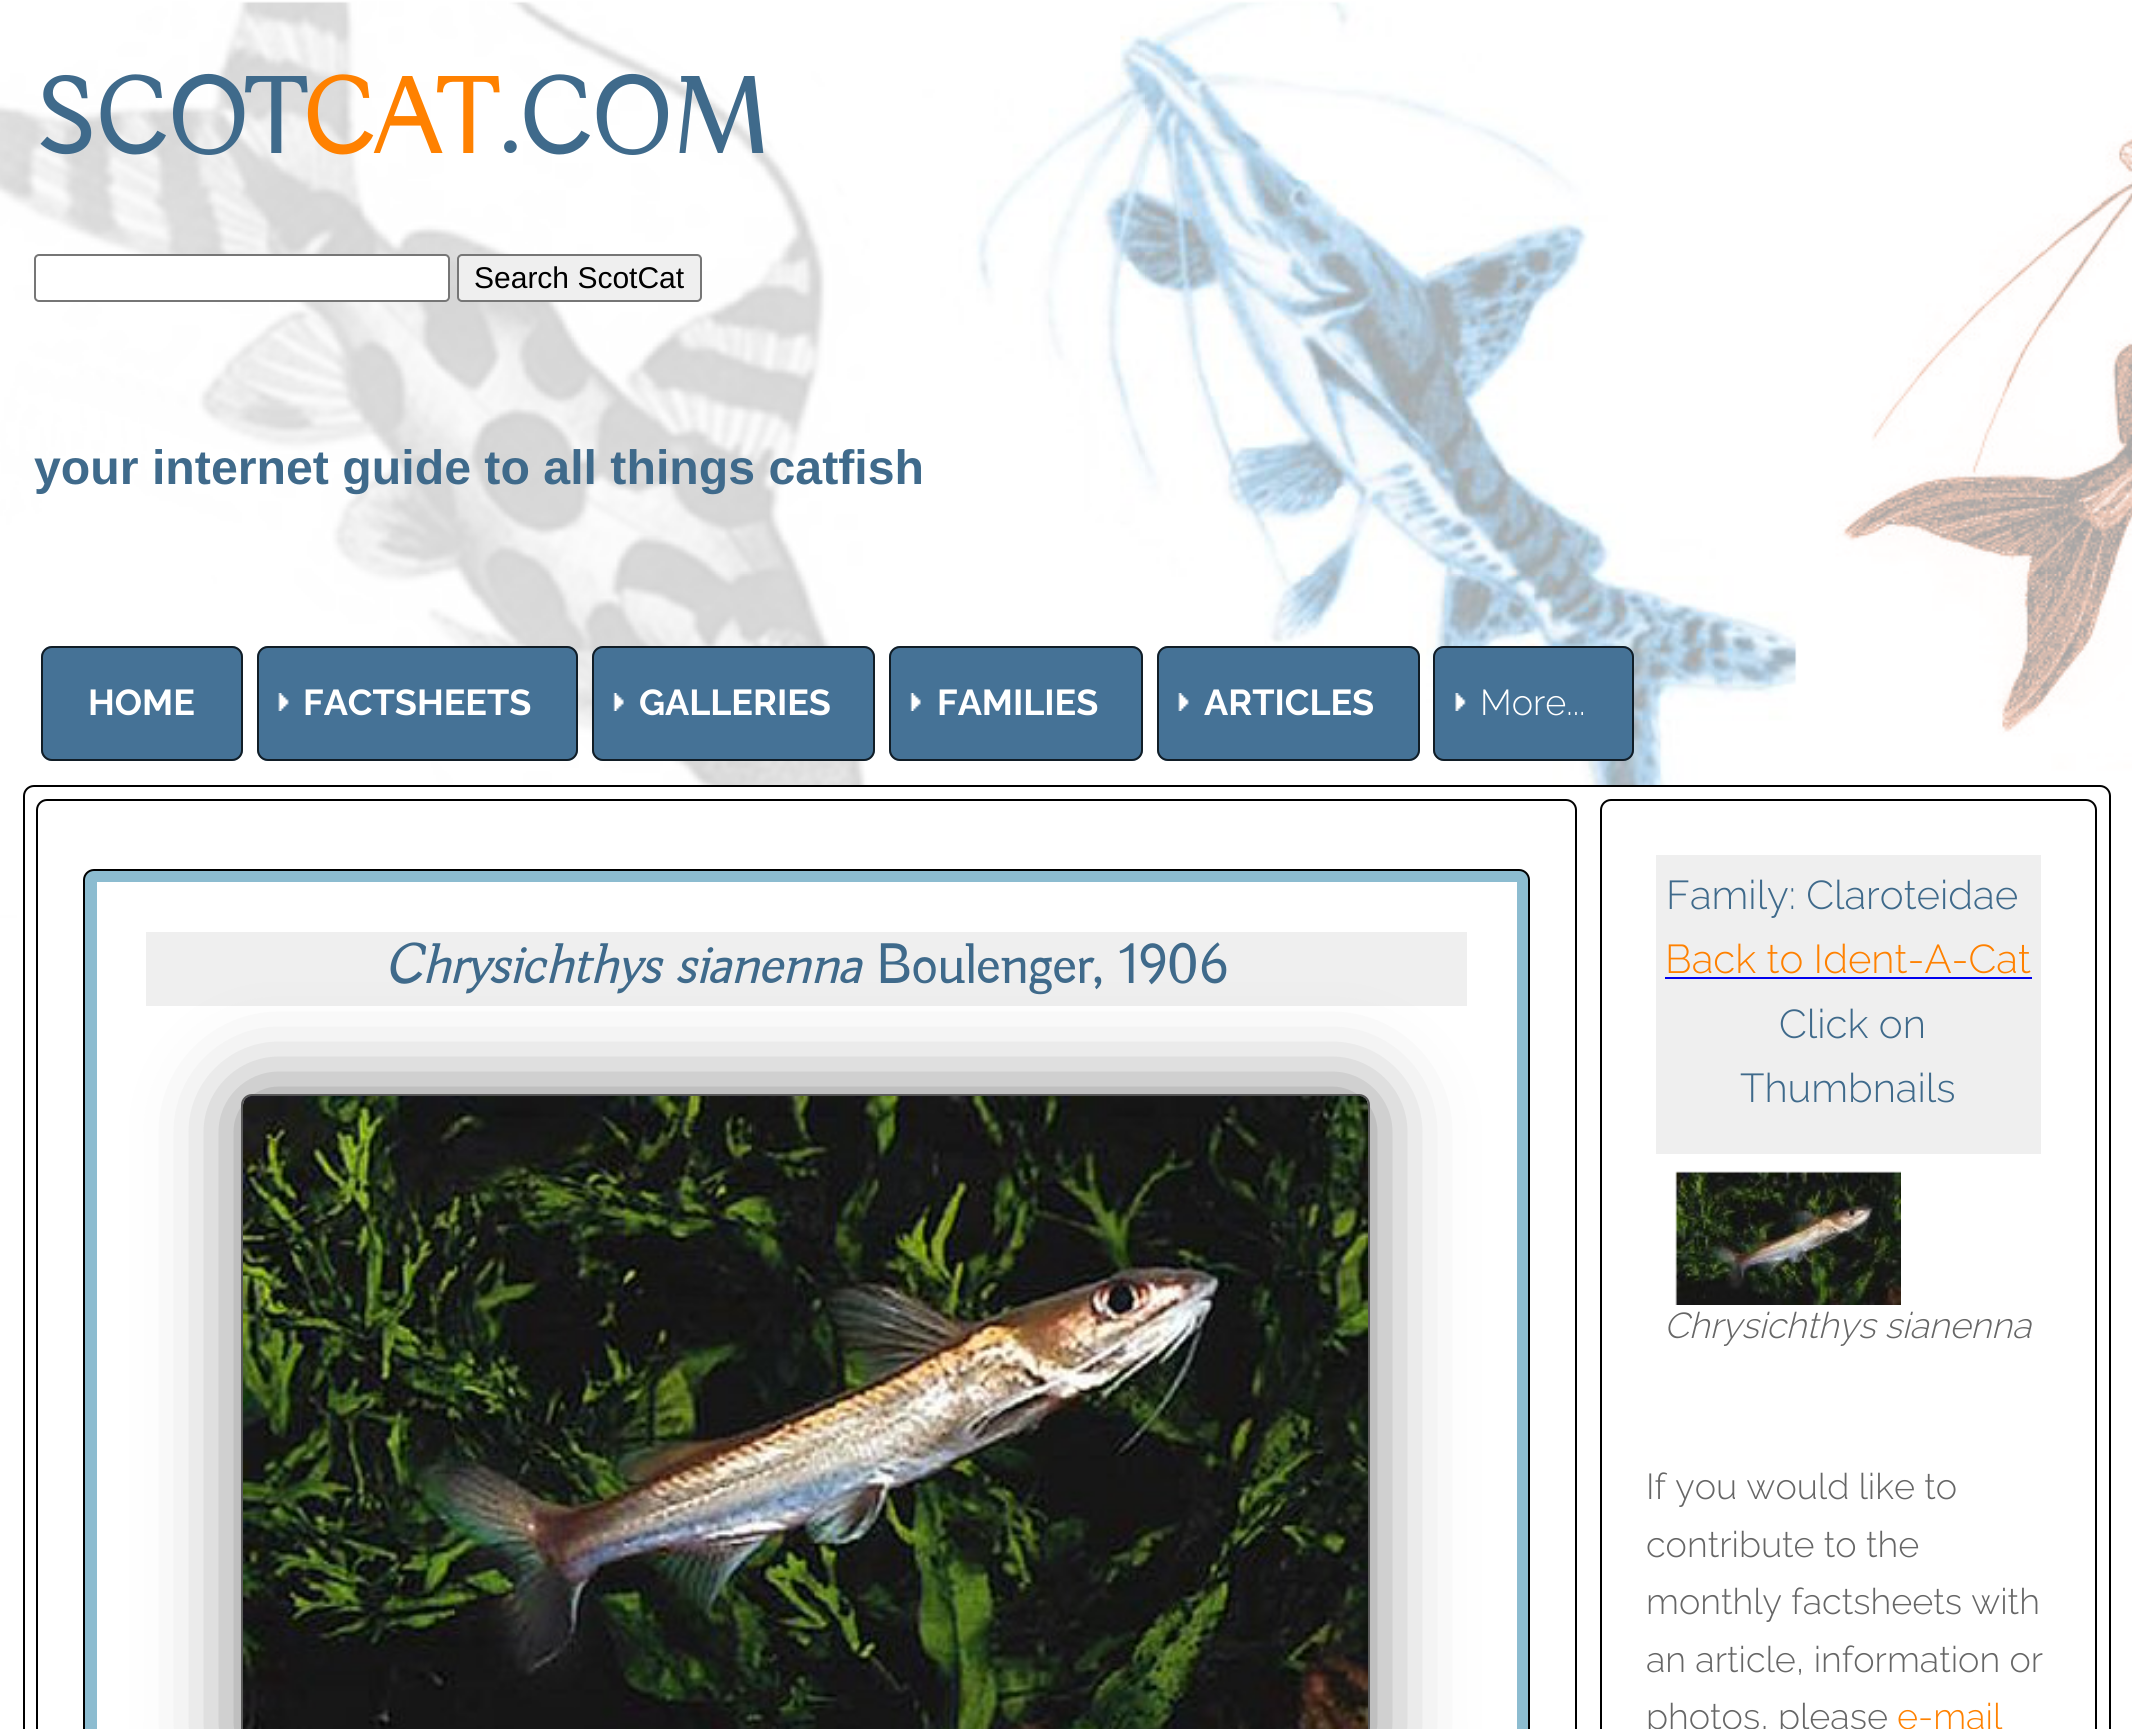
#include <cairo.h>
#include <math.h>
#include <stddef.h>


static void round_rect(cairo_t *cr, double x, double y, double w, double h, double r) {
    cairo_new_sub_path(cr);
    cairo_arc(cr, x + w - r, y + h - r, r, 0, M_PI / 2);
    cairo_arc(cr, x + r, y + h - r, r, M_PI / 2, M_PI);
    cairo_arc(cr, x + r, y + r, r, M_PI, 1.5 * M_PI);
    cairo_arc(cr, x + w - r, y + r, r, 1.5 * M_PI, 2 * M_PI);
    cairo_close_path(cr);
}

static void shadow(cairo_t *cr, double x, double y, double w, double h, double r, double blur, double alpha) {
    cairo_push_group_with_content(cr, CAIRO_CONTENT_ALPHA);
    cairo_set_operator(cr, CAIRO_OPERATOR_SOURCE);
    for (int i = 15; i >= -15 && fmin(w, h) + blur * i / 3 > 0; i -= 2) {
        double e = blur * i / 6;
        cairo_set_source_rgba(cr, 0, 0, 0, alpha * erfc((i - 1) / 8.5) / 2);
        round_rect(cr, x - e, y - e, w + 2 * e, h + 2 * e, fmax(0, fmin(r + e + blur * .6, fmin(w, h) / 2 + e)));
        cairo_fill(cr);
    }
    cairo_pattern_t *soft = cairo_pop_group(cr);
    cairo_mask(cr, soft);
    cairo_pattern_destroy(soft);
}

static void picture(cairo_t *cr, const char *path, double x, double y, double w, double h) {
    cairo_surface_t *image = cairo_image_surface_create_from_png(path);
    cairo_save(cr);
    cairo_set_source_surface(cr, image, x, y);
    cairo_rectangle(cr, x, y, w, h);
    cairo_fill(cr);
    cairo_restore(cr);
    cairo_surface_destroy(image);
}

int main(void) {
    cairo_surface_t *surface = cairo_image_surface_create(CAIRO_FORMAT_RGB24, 2132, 1729);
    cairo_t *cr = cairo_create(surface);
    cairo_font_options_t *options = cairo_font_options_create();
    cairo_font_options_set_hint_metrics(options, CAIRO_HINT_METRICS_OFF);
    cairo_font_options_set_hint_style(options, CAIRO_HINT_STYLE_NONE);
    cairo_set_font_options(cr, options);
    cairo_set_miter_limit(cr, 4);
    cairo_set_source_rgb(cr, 1, 1, 1);
    cairo_paint(cr);
    picture(cr, "img1.png", 0, 1, 2132, 917);
    cairo_select_font_face(cr, "Buda", CAIRO_FONT_SLANT_NORMAL, CAIRO_FONT_WEIGHT_BOLD);
    cairo_set_font_size(cr, 108);
    cairo_set_source_rgb(cr, 0.247, 0.416, 0.545);
    cairo_move_to(cr, 34, 153);
    cairo_show_text(cr, "SCOT");
    cairo_set_source_rgb(cr, 1, 0.506, 0);
    cairo_move_to(cr, 303, 153);
    cairo_show_text(cr, "CAT");
    cairo_set_source_rgb(cr, 0.247, 0.416, 0.545);
    cairo_move_to(cr, 495, 153);
    cairo_show_text(cr, ".COM");
    cairo_set_source_rgb(cr, 1, 1, 1);
    round_rect(cr, 35, 255, 414, 46, 4);
    cairo_fill_preserve(cr);
    cairo_set_source_rgb(cr, 0.463, 0.463, 0.463);
    cairo_stroke(cr);
    cairo_set_source_rgb(cr, 0.937, 0.937, 0.937);
    round_rect(cr, 458, 255, 243, 46, 4);
    cairo_fill_preserve(cr);
    cairo_set_source_rgb(cr, 0.463, 0.463, 0.463);
    cairo_stroke(cr);
    cairo_select_font_face(cr, "Liberation Sans", CAIRO_FONT_SLANT_NORMAL, CAIRO_FONT_WEIGHT_NORMAL);
    cairo_set_font_size(cr, 30);
    cairo_set_source_rgb(cr, 0, 0, 0);
    cairo_move_to(cr, 474, 288);
    cairo_show_text(cr, "Search ScotCat");
    cairo_select_font_face(cr, "Liberation Sans", CAIRO_FONT_SLANT_NORMAL, CAIRO_FONT_WEIGHT_BOLD);
    cairo_set_font_size(cr, 48.25);
    cairo_set_source_rgb(cr, 0.247, 0.416, 0.545);
    cairo_move_to(cr, 34, 484);
    cairo_show_text(cr, "your internet guide to all things catfish");
    cairo_set_source_rgb(cr, 0.271, 0.447, 0.588);
    round_rect(cr, 41, 646, 202, 115, 11);
    cairo_fill(cr);
    round_rect(cr, 42, 647, 200, 113, 10);
    cairo_set_source_rgba(cr, 0, 0, 0, 0.75);
    cairo_stroke(cr);
    cairo_select_font_face(cr, "Raleway", CAIRO_FONT_SLANT_NORMAL, CAIRO_FONT_WEIGHT_BOLD);
    cairo_set_font_size(cr, 36);
    cairo_set_source_rgb(cr, 1, 1, 1);
    cairo_move_to(cr, 88, 715);
    cairo_show_text(cr, "HOME");
    cairo_set_source_rgb(cr, 0.271, 0.447, 0.588);
    round_rect(cr, 257, 646, 321, 115, 11);
    cairo_fill(cr);
    picture(cr, "img2.png", 278, 693, 11, 18);
    round_rect(cr, 258, 647, 319, 113, 10);
    cairo_set_source_rgba(cr, 0, 0, 0, 0.75);
    cairo_stroke(cr);
    cairo_set_source_rgb(cr, 1, 1, 1);
    cairo_move_to(cr, 303, 715);
    cairo_show_text(cr, "FACTSHEETS");
    cairo_set_source_rgb(cr, 0.271, 0.447, 0.588);
    round_rect(cr, 592, 646, 283, 115, 11);
    cairo_fill(cr);
    picture(cr, "img3.png", 613, 693, 11, 18);
    round_rect(cr, 593, 647, 281, 113, 10);
    cairo_set_source_rgba(cr, 0, 0, 0, 0.75);
    cairo_stroke(cr);
    cairo_set_source_rgb(cr, 1, 1, 1);
    cairo_move_to(cr, 639, 715);
    cairo_show_text(cr, "GALLERIES");
    cairo_set_source_rgb(cr, 0.271, 0.447, 0.588);
    round_rect(cr, 889, 646, 254, 115, 11);
    cairo_fill(cr);
    picture(cr, "img3.png", 910, 693, 11, 18);
    round_rect(cr, 890, 647, 252, 113, 10);
    cairo_set_source_rgba(cr, 0, 0, 0, 0.75);
    cairo_stroke(cr);
    cairo_set_source_rgb(cr, 1, 1, 1);
    cairo_move_to(cr, 937, 715);
    cairo_show_text(cr, "FAMILIES");
    cairo_set_source_rgb(cr, 0.271, 0.447, 0.588);
    round_rect(cr, 1157, 646, 263, 115, 11);
    cairo_fill(cr);
    picture(cr, "img2.png", 1178, 693, 11, 18);
    round_rect(cr, 1158, 647, 261, 113, 10);
    cairo_set_source_rgba(cr, 0, 0, 0, 0.75);
    cairo_stroke(cr);
    cairo_set_source_rgb(cr, 1, 1, 1);
    cairo_move_to(cr, 1204, 715);
    cairo_show_text(cr, "ARTICLES");
    cairo_set_source_rgb(cr, 0.271, 0.447, 0.588);
    round_rect(cr, 1433, 646, 201, 115, 11);
    cairo_fill(cr);
    picture(cr, "img4.png", 1455, 693, 11, 18);
    round_rect(cr, 1434, 647, 199, 113, 10);
    cairo_set_source_rgba(cr, 0, 0, 0, 0.75);
    cairo_stroke(cr);
    cairo_select_font_face(cr, "Raleway Light", CAIRO_FONT_SLANT_NORMAL, CAIRO_FONT_WEIGHT_NORMAL);
    cairo_set_source_rgb(cr, 1, 1, 1);
    cairo_move_to(cr, 1480, 715);
    cairo_show_text(cr, "More...");
    round_rect(cr, 24, 786, 2086, 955, 10);
    cairo_fill_preserve(cr);
    cairo_set_source_rgb(cr, 0, 0, 0);
    cairo_stroke(cr);
    round_rect(cr, 37, 800, 1539, 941, 10);
    cairo_stroke(cr);
    cairo_set_source_rgb(cr, 0.549, 0.737, 0.816);
    round_rect(cr, 84, 870, 1445, 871, 10);
    cairo_fill_preserve(cr);
    cairo_set_source_rgb(cr, 0, 0, 0);
    cairo_stroke(cr);
    cairo_set_source_rgb(cr, 1, 1, 1);
    cairo_rectangle(cr, 97, 882, 1420, 847);
    cairo_fill(cr);
    cairo_set_source_rgb(cr, 0.937, 0.937, 0.937);
    cairo_rectangle(cr, 146, 932, 1321, 74);
    cairo_fill(cr);
    cairo_select_font_face(cr, "Buda", CAIRO_FONT_SLANT_ITALIC, CAIRO_FONT_WEIGHT_BOLD);
    cairo_set_font_size(cr, 55.75);
    cairo_set_source_rgb(cr, 0.247, 0.416, 0.545);
    cairo_move_to(cr, 384, 983);
    cairo_show_text(cr, "Chrysichthys sianenna");
    cairo_select_font_face(cr, "Buda", CAIRO_FONT_SLANT_NORMAL, CAIRO_FONT_WEIGHT_BOLD);
    cairo_move_to(cr, 875, 983);
    cairo_show_text(cr, "Boulenger, 1906");
    cairo_set_source_rgb(cr, 0, 0, 0);
    shadow(cr, 241, 1094, 1129, 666, 11, 45, 0.5);
    round_rect(cr, 242, 1095, 1127, 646, 10);
    cairo_set_source_rgb(cr, 0.349, 0.349, 0.349);
    cairo_stroke(cr);
    picture(cr, "img5.png", 243, 1095, 1125, 634);
    round_rect(cr, 1601, 800, 495, 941, 10);
    cairo_set_source_rgb(cr, 0, 0, 0);
    cairo_stroke(cr);
    cairo_set_source_rgb(cr, 0.937, 0.937, 0.937);
    cairo_rectangle(cr, 1656, 855, 385, 299);
    cairo_fill(cr);
    cairo_select_font_face(cr, "Raleway Light", CAIRO_FONT_SLANT_NORMAL, CAIRO_FONT_WEIGHT_NORMAL);
    cairo_set_font_size(cr, 40.25);
    cairo_set_source_rgb(cr, 0.247, 0.416, 0.545);
    cairo_move_to(cr, 1666, 909);
    cairo_show_text(cr, "Family: Claroteidae");
    cairo_set_source_rgb(cr, 1, 0.506, 0);
    cairo_move_to(cr, 1665, 973);
    cairo_show_text(cr, "Back to Ident-A-Cat");
    cairo_set_source_rgb(cr, 0, 0, 0.933);
    cairo_rectangle(cr, 1665, 977, 367, 2);
    cairo_fill(cr);
    cairo_set_source_rgb(cr, 0.247, 0.416, 0.545);
    cairo_move_to(cr, 1779, 1038);
    cairo_show_text(cr, "Click on");
    cairo_move_to(cr, 1740, 1102);
    cairo_show_text(cr, "Thumbnails");
    picture(cr, "img6.png", 1675, 1171, 226, 134);
    cairo_select_font_face(cr, "Raleway Light", CAIRO_FONT_SLANT_ITALIC, CAIRO_FONT_WEIGHT_NORMAL);
    cairo_set_font_size(cr, 36);
    cairo_set_source_rgb(cr, 0.4, 0.4, 0.4);
    cairo_move_to(cr, 1664, 1338);
    cairo_show_text(cr, "Chrysichthys sianenna");
    cairo_select_font_face(cr, "Raleway Light", CAIRO_FONT_SLANT_NORMAL, CAIRO_FONT_WEIGHT_NORMAL);
    cairo_move_to(cr, 1646, 1499);
    cairo_show_text(cr, "If you would like to");
    cairo_move_to(cr, 1646, 1557);
    cairo_show_text(cr, "contribute to the");
    cairo_move_to(cr, 1646, 1614);
    cairo_show_text(cr, "monthly factsheets with");
    cairo_move_to(cr, 1646, 1672);
    cairo_show_text(cr, "an article, information or");
    cairo_move_to(cr, 1646, 1729);
    cairo_show_text(cr, "photos, please");
    cairo_set_source_rgb(cr, 1, 0.506, 0);
    cairo_move_to(cr, 1897, 1729);
    cairo_show_text(cr, "e-mail");
    cairo_surface_write_to_png(surface, "page.png");
    cairo_font_options_destroy(options);
    cairo_destroy(cr);
    cairo_surface_destroy(surface);
    return 0;
}
